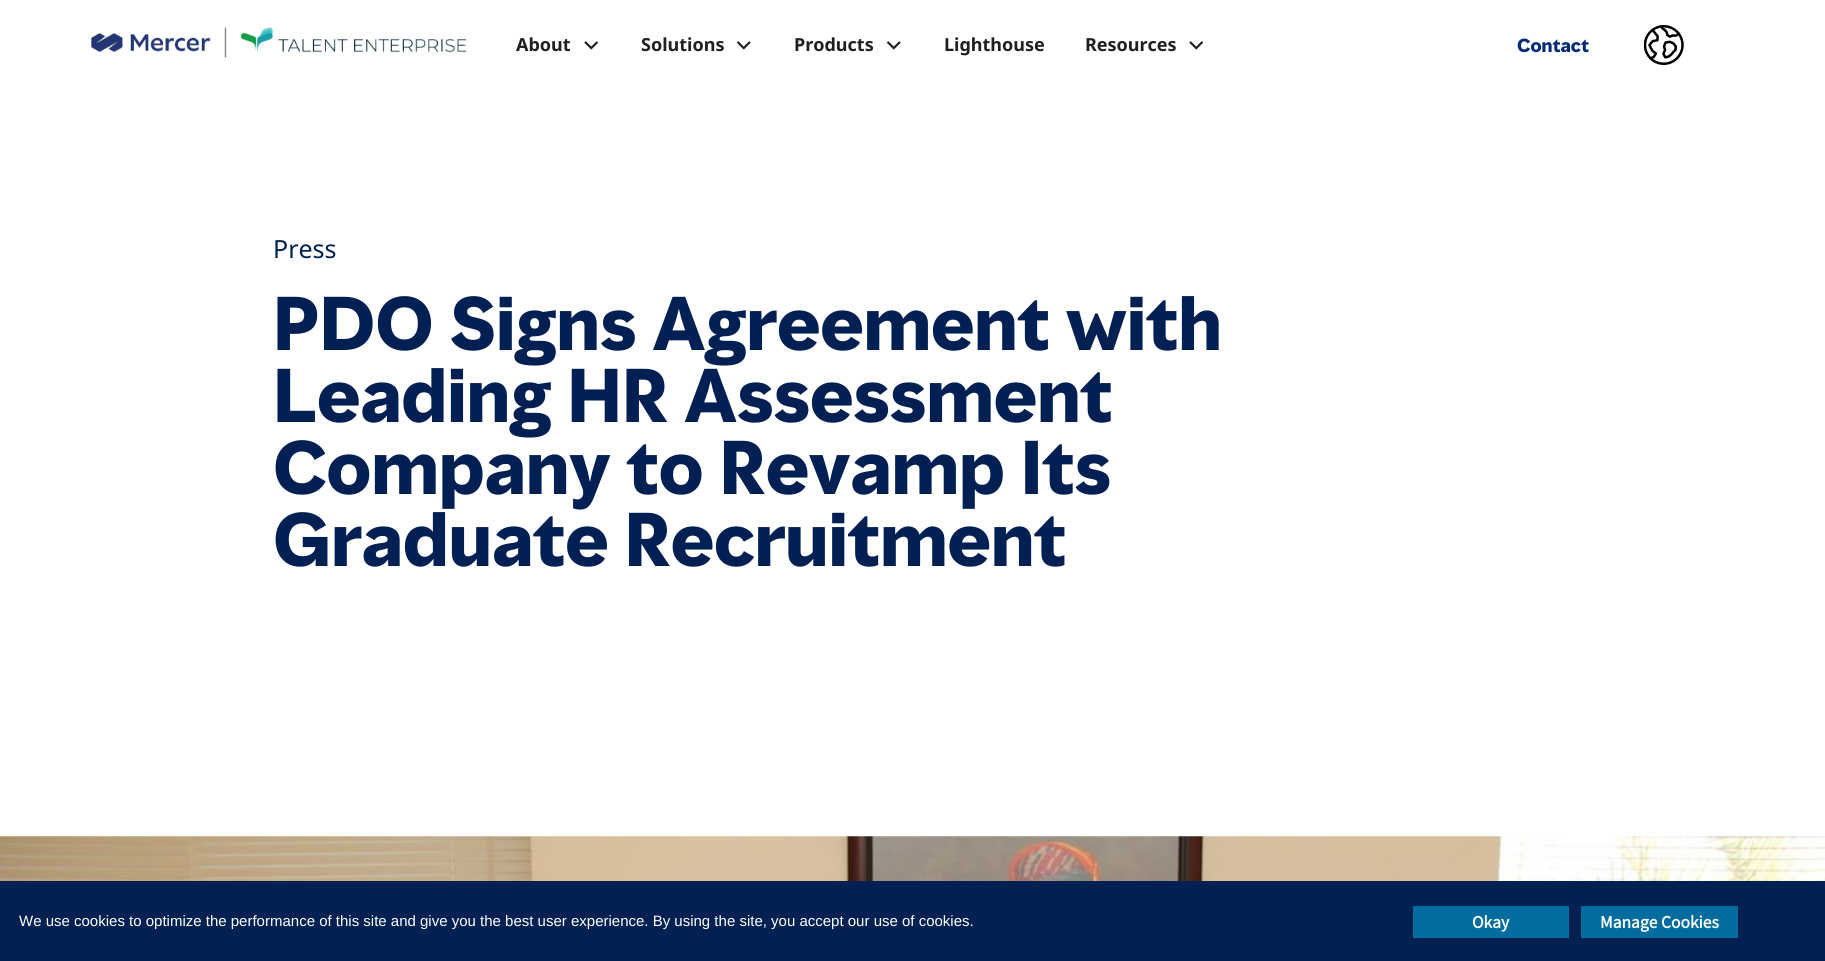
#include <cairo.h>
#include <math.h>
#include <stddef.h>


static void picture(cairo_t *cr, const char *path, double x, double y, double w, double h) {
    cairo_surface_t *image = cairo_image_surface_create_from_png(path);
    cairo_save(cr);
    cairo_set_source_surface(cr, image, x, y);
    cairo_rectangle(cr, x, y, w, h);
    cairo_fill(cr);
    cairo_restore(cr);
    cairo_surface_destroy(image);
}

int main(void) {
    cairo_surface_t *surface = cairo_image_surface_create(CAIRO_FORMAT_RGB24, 1825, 961);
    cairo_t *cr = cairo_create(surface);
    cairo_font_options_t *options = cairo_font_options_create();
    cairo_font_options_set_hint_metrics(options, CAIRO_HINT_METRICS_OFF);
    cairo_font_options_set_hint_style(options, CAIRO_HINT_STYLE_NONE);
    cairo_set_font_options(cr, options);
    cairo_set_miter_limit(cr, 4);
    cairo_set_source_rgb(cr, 1, 1, 1);
    cairo_paint(cr);
    picture(cr, "img1.png", 91, 27, 376, 31);
    cairo_select_font_face(cr, "Noto Sans", CAIRO_FONT_SLANT_NORMAL, CAIRO_FONT_WEIGHT_BOLD);
    cairo_set_font_size(cr, 18);
    cairo_set_source_rgb(cr, 0.125, 0.125, 0.125);
    cairo_move_to(cr, 516, 51);
    cairo_show_text(cr, "About");
    picture(cr, "img2.png", 584, 41, 15, 9);
    cairo_move_to(cr, 641, 51);
    cairo_show_text(cr, "Solutions");
    picture(cr, "img3.png", 736, 41, 15, 9);
    cairo_move_to(cr, 794, 51);
    cairo_show_text(cr, "Products");
    picture(cr, "img3.png", 886, 41, 15, 9);
    cairo_move_to(cr, 944, 51);
    cairo_show_text(cr, "Lighthouse");
    cairo_move_to(cr, 1085, 51);
    cairo_show_text(cr, "Resources");
    picture(cr, "img2.png", 1189, 41, 15, 9);
    cairo_select_font_face(cr, "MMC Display", CAIRO_FONT_SLANT_NORMAL, CAIRO_FONT_WEIGHT_BOLD);
    cairo_set_font_size(cr, 17.5);
    cairo_set_source_rgb(cr, 0, 0.173, 0.467);
    cairo_move_to(cr, 1517, 52);
    cairo_show_text(cr, "Contact");
    picture(cr, "img4.png", 1644, 25, 40, 40);
    cairo_select_font_face(cr, "Noto Sans", CAIRO_FONT_SLANT_NORMAL, CAIRO_FONT_WEIGHT_NORMAL);
    cairo_set_font_size(cr, 25);
    cairo_set_source_rgb(cr, 0, 0.122, 0.322);
    cairo_move_to(cr, 273, 258);
    cairo_show_text(cr, "Press");
    cairo_select_font_face(cr, "MMC Display", CAIRO_FONT_SLANT_NORMAL, CAIRO_FONT_WEIGHT_BOLD);
    cairo_set_font_size(cr, 70);
    cairo_move_to(cr, 273, 350);
    cairo_show_text(cr, "PDO Signs Agreement with");
    cairo_move_to(cr, 273, 422);
    cairo_show_text(cr, "Leading HR Assessment");
    cairo_move_to(cr, 273, 494);
    cairo_show_text(cr, "Company to Revamp Its");
    cairo_move_to(cr, 273, 566);
    cairo_show_text(cr, "Graduate Recruitment");
    picture(cr, "img5.png", 0, 836, 1825, 45);
    cairo_set_source_rgb(cr, 0.008, 0.129, 0.322);
    cairo_rectangle(cr, 0, 881, 1825, 80);
    cairo_fill(cr);
    cairo_select_font_face(cr, "Liberation Sans", CAIRO_FONT_SLANT_NORMAL, CAIRO_FONT_WEIGHT_NORMAL);
    cairo_set_font_size(cr, 15);
    cairo_set_source_rgb(cr, 1, 1, 1);
    cairo_move_to(cr, 19, 926);
    cairo_show_text(cr, "We use cookies to optimize the performance of this site and give you the best user experience. By using the site, you accept our use of cookies.");
    cairo_set_source_rgb(cr, 0, 0.427, 0.62);
    cairo_rectangle(cr, 1413, 906, 156, 32);
    cairo_fill(cr);
    cairo_select_font_face(cr, "Source Sans Pro", CAIRO_FONT_SLANT_NORMAL, CAIRO_FONT_WEIGHT_BOLD);
    cairo_set_font_size(cr, 17.5);
    cairo_set_source_rgb(cr, 1, 1, 1);
    cairo_move_to(cr, 1472, 928);
    cairo_show_text(cr, "Okay");
    cairo_set_source_rgb(cr, 0, 0.427, 0.62);
    cairo_rectangle(cr, 1581, 906, 157, 32);
    cairo_fill(cr);
    cairo_set_source_rgb(cr, 1, 1, 1);
    cairo_move_to(cr, 1600, 928);
    cairo_show_text(cr, "Manage Cookies");
    cairo_surface_write_to_png(surface, "page.png");
    cairo_font_options_destroy(options);
    cairo_destroy(cr);
    cairo_surface_destroy(surface);
    return 0;
}
